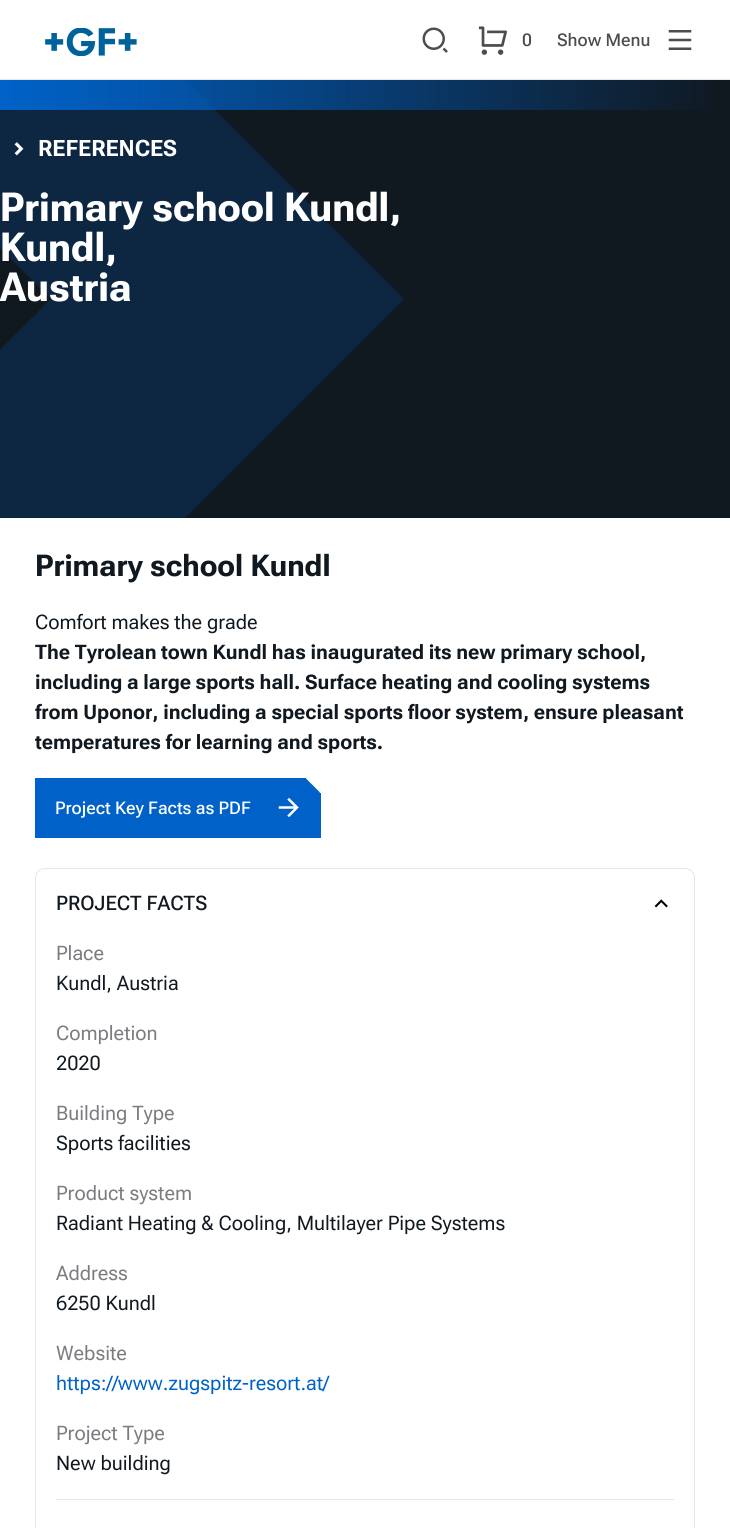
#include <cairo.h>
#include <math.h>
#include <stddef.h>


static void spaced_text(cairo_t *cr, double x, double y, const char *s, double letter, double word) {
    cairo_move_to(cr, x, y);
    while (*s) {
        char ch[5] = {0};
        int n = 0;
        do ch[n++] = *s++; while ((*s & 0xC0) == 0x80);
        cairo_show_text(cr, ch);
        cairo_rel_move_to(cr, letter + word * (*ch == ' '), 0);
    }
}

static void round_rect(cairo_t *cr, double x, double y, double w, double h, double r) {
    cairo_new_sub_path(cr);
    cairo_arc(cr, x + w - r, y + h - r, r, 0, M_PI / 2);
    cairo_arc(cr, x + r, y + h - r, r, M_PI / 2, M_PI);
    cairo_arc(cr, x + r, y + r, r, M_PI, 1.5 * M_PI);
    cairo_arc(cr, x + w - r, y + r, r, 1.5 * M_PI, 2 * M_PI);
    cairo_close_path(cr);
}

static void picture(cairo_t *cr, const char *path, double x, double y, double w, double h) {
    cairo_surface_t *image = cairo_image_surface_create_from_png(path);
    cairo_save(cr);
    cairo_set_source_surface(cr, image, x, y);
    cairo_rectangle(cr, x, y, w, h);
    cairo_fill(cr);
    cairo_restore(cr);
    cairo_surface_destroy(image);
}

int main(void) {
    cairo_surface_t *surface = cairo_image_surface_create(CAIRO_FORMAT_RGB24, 730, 1528);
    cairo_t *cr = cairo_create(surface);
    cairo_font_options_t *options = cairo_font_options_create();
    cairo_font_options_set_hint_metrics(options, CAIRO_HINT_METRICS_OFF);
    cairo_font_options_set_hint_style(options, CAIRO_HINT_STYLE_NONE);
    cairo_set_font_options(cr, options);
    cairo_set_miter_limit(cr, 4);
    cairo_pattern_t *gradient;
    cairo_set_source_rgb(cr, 1, 1, 1);
    cairo_paint(cr);
    cairo_set_source_rgb(cr, 0.906, 0.91, 0.914);
    cairo_rectangle(cr, 0, 79, 730, 1);
    cairo_fill(cr);
    picture(cr, "img1.png", 45, 28, 92, 28);
    picture(cr, "img2.png", 422, 27, 26, 26);
    picture(cr, "img3.png", 478, 26, 29, 29);
    cairo_select_font_face(cr, "Roboto Flex Medium", CAIRO_FONT_SLANT_NORMAL, CAIRO_FONT_WEIGHT_NORMAL);
    cairo_set_font_size(cr, 17.5);
    cairo_set_source_rgb(cr, 0.302, 0.302, 0.302);
    cairo_move_to(cr, 522, 46);
    cairo_show_text(cr, "0");
    cairo_move_to(cr, 557, 46);
    cairo_show_text(cr, "Show Menu");
    picture(cr, "img4.png", 668, 30, 24, 20);
    cairo_set_source_rgb(cr, 0.063, 0.094, 0.125);
    cairo_rectangle(cr, 0, 80, 730, 438);
    cairo_fill(cr);
    cairo_save(cr);
    cairo_rectangle(cr, 0, 80, 730, 438);
    cairo_clip(cr);
    cairo_set_source_rgb(cr, 0.051, 0.153, 0.259);
    cairo_new_path(cr);
    cairo_move_to(cr, -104, -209);
    cairo_line_to(cr, 404, 299);
    cairo_line_to(cr, 51, 299);
    cairo_line_to(cr, -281, -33);
    cairo_close_path(cr);
    cairo_fill(cr);
    cairo_restore(cr);
    gradient = cairo_pattern_create_linear(730, 95, 0, 95);
    cairo_pattern_add_color_stop_rgba(gradient, 0, 0, 0.384, 0.784, 0);
    cairo_pattern_add_color_stop_rgba(gradient, 1, 0, 0.384, 0.784, 1);
    cairo_set_source(cr, gradient);
    cairo_pattern_destroy(gradient);
    cairo_rectangle(cr, 0, 80, 714, 30);
    cairo_fill(cr);
    cairo_save(cr);
    cairo_rectangle(cr, 0, 80, 730, 438);
    cairo_clip(cr);
    cairo_set_source_rgb(cr, 0.051, 0.153, 0.259);
    cairo_new_path(cr);
    cairo_move_to(cr, 404, 299);
    cairo_line_to(cr, -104, 807);
    cairo_line_to(cr, -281, 630);
    cairo_line_to(cr, 51, 299);
    cairo_close_path(cr);
    cairo_fill(cr);
    cairo_restore(cr);
    picture(cr, "img5.png", 14, 142, 10, 14);
    cairo_select_font_face(cr, "Roboto Flex", CAIRO_FONT_SLANT_NORMAL, CAIRO_FONT_WEIGHT_BOLD);
    cairo_set_font_size(cr, 22.5);
    cairo_set_source_rgb(cr, 1, 1, 1);
    cairo_move_to(cr, 38, 156);
    cairo_show_text(cr, "REFERENCES");
    cairo_select_font_face(cr, "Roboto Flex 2", CAIRO_FONT_SLANT_NORMAL, CAIRO_FONT_WEIGHT_BOLD);
    cairo_set_font_size(cr, 40);
    cairo_move_to(cr, 0, 221);
    cairo_show_text(cr, "Primary school Kundl,");
    cairo_move_to(cr, 0, 261);
    cairo_show_text(cr, "Kundl,");
    cairo_move_to(cr, 0, 301);
    cairo_show_text(cr, "Austria");
    cairo_select_font_face(cr, "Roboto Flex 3", CAIRO_FONT_SLANT_NORMAL, CAIRO_FONT_WEIGHT_BOLD);
    cairo_set_font_size(cr, 30);
    cairo_set_source_rgb(cr, 0.063, 0.094, 0.125);
    cairo_move_to(cr, 35, 576);
    cairo_show_text(cr, "Primary school Kundl");
    cairo_select_font_face(cr, "Roboto Flex", CAIRO_FONT_SLANT_NORMAL, CAIRO_FONT_WEIGHT_NORMAL);
    cairo_set_font_size(cr, 20);
    cairo_move_to(cr, 35, 629);
    cairo_show_text(cr, "Comfort makes the grade");
    cairo_select_font_face(cr, "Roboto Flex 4", CAIRO_FONT_SLANT_NORMAL, CAIRO_FONT_WEIGHT_BOLD);
    cairo_move_to(cr, 35, 659);
    cairo_show_text(cr, "The Tyrolean");
    spaced_text(cr, 161, 659, "town Kundl has inaugurated its new primary school,", 0, -0.25);
    spaced_text(cr, 35, 689, "including a large sports hall. Surface heating and cooling systems", 0, -0.25);
    spaced_text(cr, 35, 719, "from Uponor, including a special sports floor system, ensure pleasant", 0, -0.25);
    spaced_text(cr, 35, 749, "temperatures for learning and sports.", 0, -0.25);
    cairo_set_source_rgb(cr, 0, 0.384, 0.784);
    cairo_rectangle(cr, 35, 778, 271, 60);
    cairo_fill(cr);
    cairo_rectangle(cr, 306, 793, 15, 45);
    cairo_fill(cr);
    cairo_new_path(cr);
    cairo_move_to(cr, 305.5, 778);
    cairo_line_to(cr, 320, 792.5);
    cairo_line_to(cr, 305.5, 806.5);
    cairo_line_to(cr, 291.5, 792.5);
    cairo_close_path(cr);
    cairo_fill(cr);
    cairo_select_font_face(cr, "Roboto Flex Medium", CAIRO_FONT_SLANT_NORMAL, CAIRO_FONT_WEIGHT_NORMAL);
    cairo_set_font_size(cr, 17.5);
    cairo_set_source_rgb(cr, 1, 1, 1);
    cairo_move_to(cr, 55, 814);
    cairo_show_text(cr, "Project Key Facts as PDF");
    picture(cr, "img6.png", 278, 797, 21, 21);
    round_rect(cr, 35.5, 868.5, 659, 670, 9.5);
    cairo_set_source_rgb(cr, 0.902, 0.902, 0.902);
    cairo_set_line_width(cr, 1);
    cairo_stroke(cr);
    cairo_rectangle(cr, 56, 1499, 618, 1);
    cairo_fill(cr);
    cairo_select_font_face(cr, "Roboto Flex 2 Medium", CAIRO_FONT_SLANT_NORMAL, CAIRO_FONT_WEIGHT_NORMAL);
    cairo_set_font_size(cr, 20);
    cairo_set_source_rgb(cr, 0.063, 0.094, 0.125);
    cairo_move_to(cr, 56, 910);
    cairo_show_text(cr, "PROJECT FACTS");
    picture(cr, "img7.png", 654, 899, 14, 9);
    cairo_select_font_face(cr, "Roboto Flex", CAIRO_FONT_SLANT_NORMAL, CAIRO_FONT_WEIGHT_NORMAL);
    cairo_set_source_rgb(cr, 0.478, 0.486, 0.502);
    cairo_move_to(cr, 56, 960);
    cairo_show_text(cr, "Place");
    cairo_set_source_rgb(cr, 0.063, 0.094, 0.125);
    cairo_move_to(cr, 56, 990);
    cairo_show_text(cr, "Kundl, Austria");
    cairo_set_source_rgb(cr, 0.478, 0.486, 0.502);
    cairo_move_to(cr, 56, 1040);
    cairo_show_text(cr, "Completion");
    cairo_set_source_rgb(cr, 0.063, 0.094, 0.125);
    cairo_move_to(cr, 56, 1070);
    cairo_show_text(cr, "2020");
    cairo_set_source_rgb(cr, 0.478, 0.486, 0.502);
    cairo_move_to(cr, 56, 1120);
    cairo_show_text(cr, "Building Type");
    cairo_set_source_rgb(cr, 0.063, 0.094, 0.125);
    cairo_move_to(cr, 56, 1150);
    cairo_show_text(cr, "Sports facilities");
    cairo_set_source_rgb(cr, 0.478, 0.486, 0.502);
    cairo_move_to(cr, 56, 1200);
    cairo_show_text(cr, "Product system");
    cairo_set_source_rgb(cr, 0.063, 0.094, 0.125);
    cairo_move_to(cr, 56, 1230);
    cairo_show_text(cr, "Radiant Heating & Cooling, Multilayer Pipe Systems");
    cairo_set_source_rgb(cr, 0.478, 0.486, 0.502);
    cairo_move_to(cr, 56, 1280);
    cairo_show_text(cr, "Address");
    cairo_set_source_rgb(cr, 0.063, 0.094, 0.125);
    cairo_move_to(cr, 56, 1310);
    cairo_show_text(cr, "6250 Kundl");
    cairo_set_source_rgb(cr, 0.478, 0.486, 0.502);
    cairo_move_to(cr, 56, 1360);
    cairo_show_text(cr, "Website");
    cairo_set_source_rgb(cr, 0, 0.384, 0.784);
    cairo_move_to(cr, 56, 1390);
    cairo_show_text(cr, "https://www.zugspitz-resort.at/");
    cairo_set_source_rgb(cr, 0.478, 0.486, 0.502);
    cairo_move_to(cr, 56, 1440);
    cairo_show_text(cr, "Project Type");
    cairo_set_source_rgb(cr, 0.063, 0.094, 0.125);
    cairo_move_to(cr, 56, 1470);
    cairo_show_text(cr, "New building");
    cairo_surface_write_to_png(surface, "page.png");
    cairo_font_options_destroy(options);
    cairo_destroy(cr);
    cairo_surface_destroy(surface);
    return 0;
}
